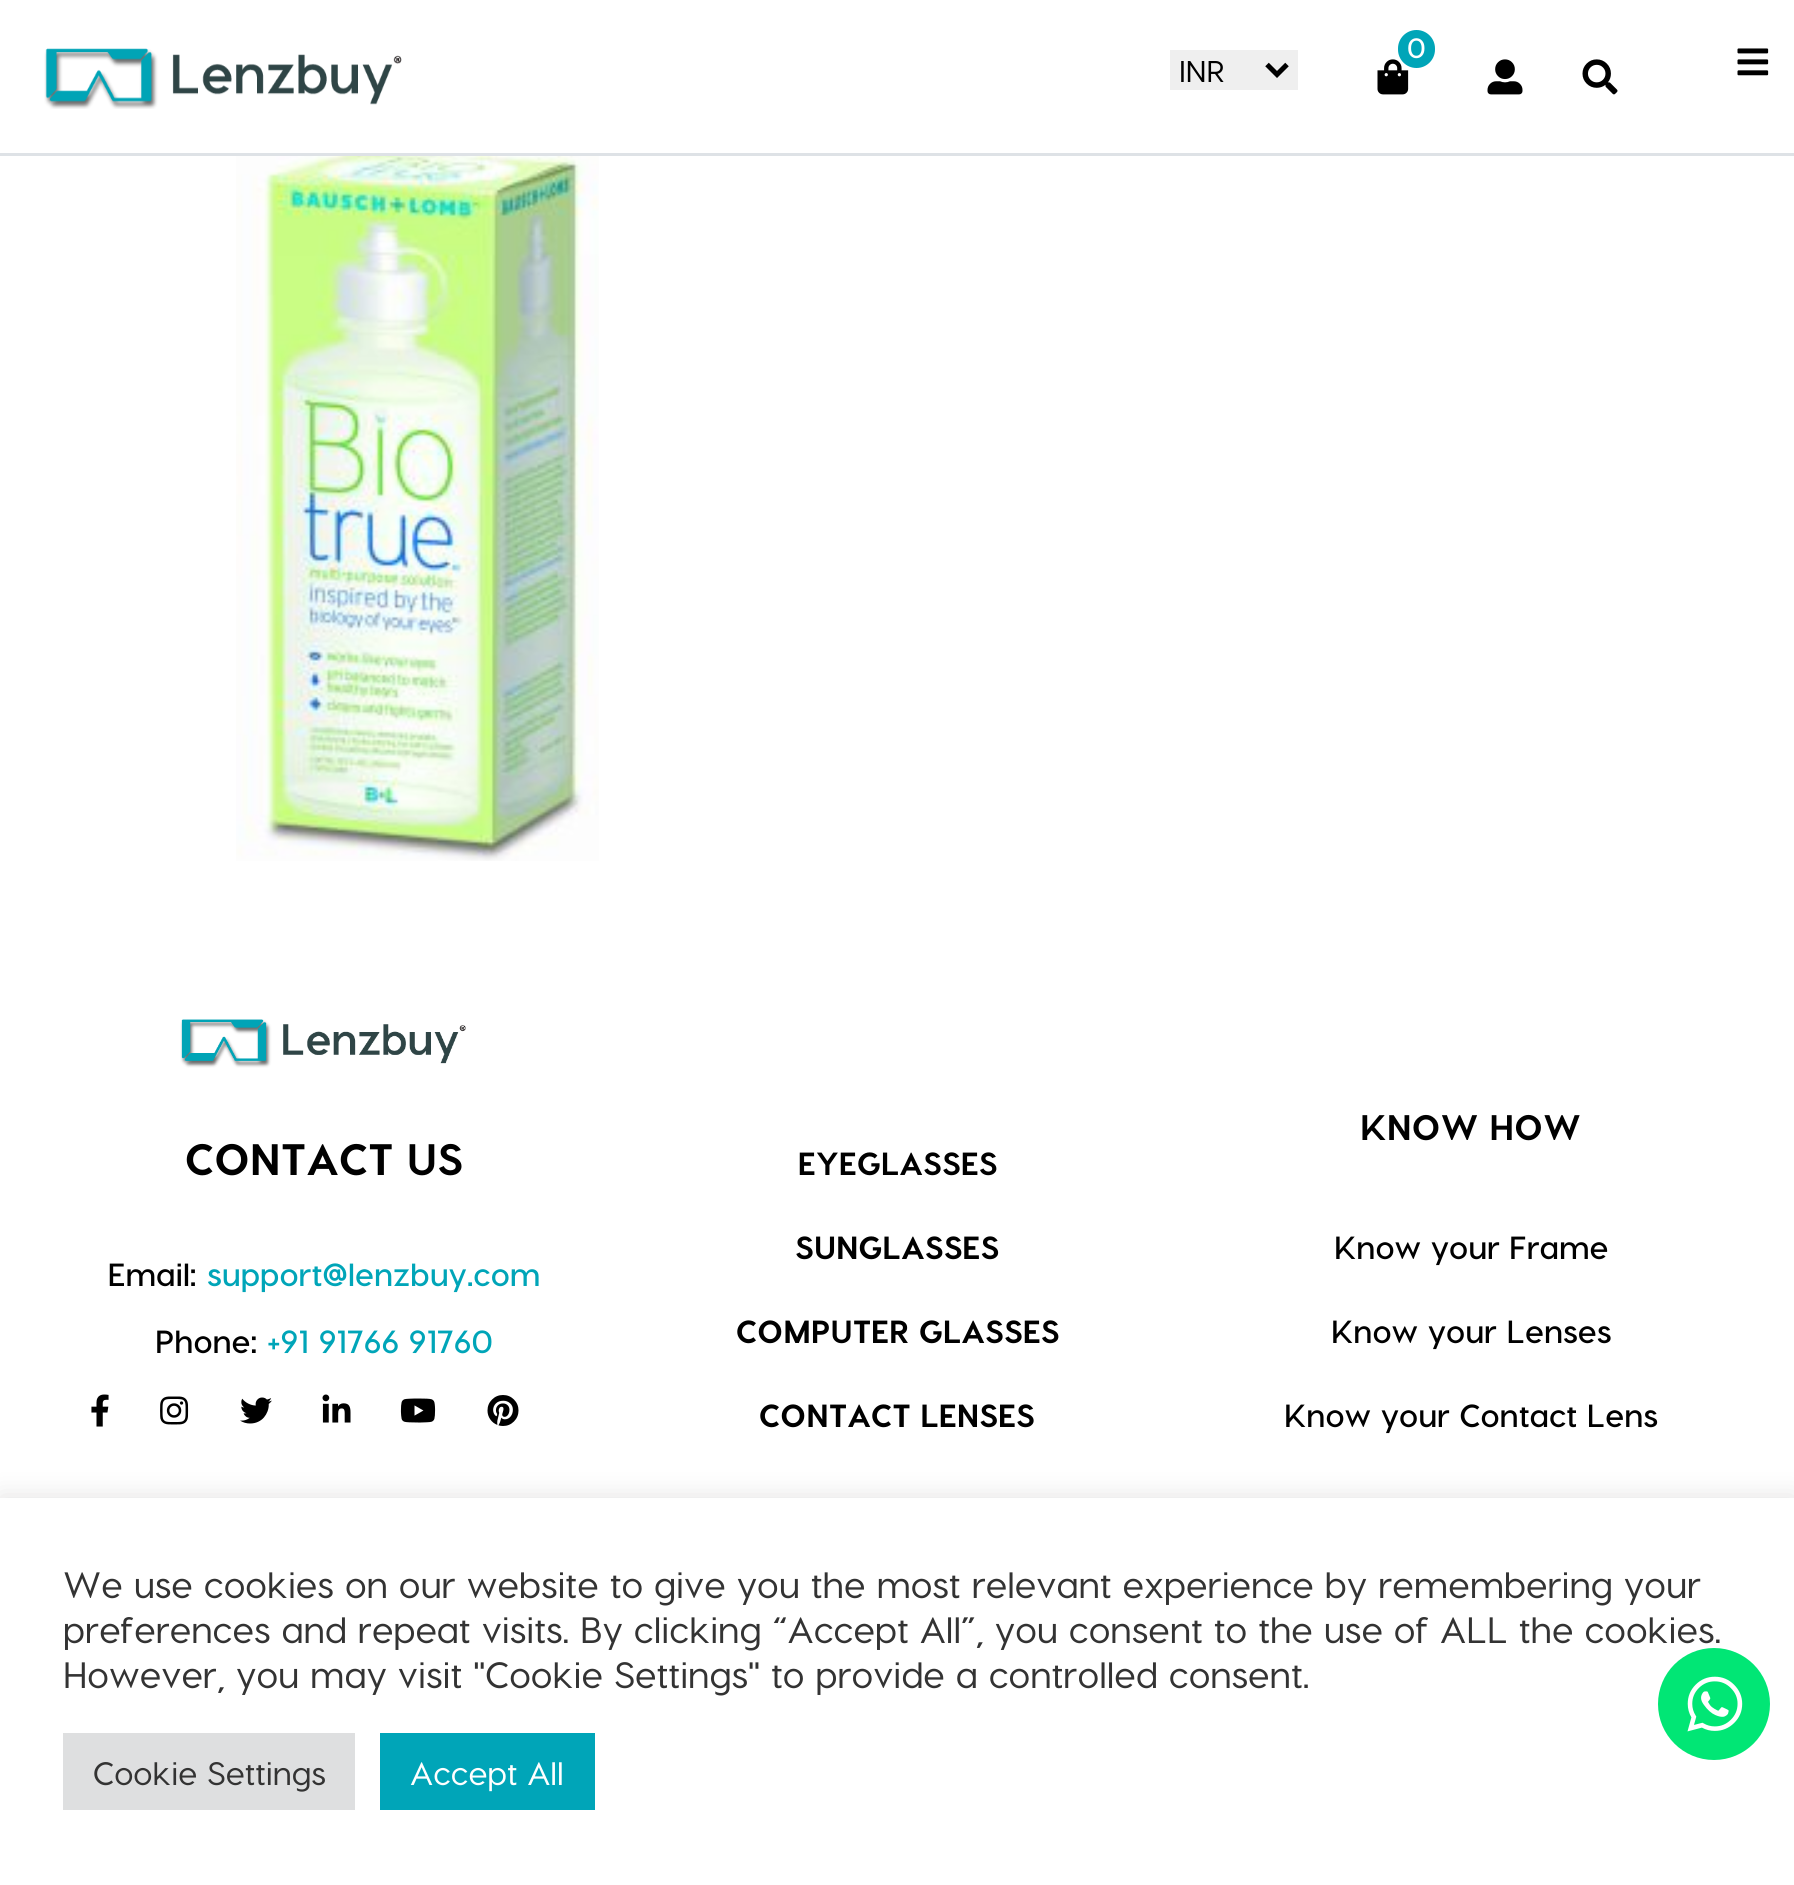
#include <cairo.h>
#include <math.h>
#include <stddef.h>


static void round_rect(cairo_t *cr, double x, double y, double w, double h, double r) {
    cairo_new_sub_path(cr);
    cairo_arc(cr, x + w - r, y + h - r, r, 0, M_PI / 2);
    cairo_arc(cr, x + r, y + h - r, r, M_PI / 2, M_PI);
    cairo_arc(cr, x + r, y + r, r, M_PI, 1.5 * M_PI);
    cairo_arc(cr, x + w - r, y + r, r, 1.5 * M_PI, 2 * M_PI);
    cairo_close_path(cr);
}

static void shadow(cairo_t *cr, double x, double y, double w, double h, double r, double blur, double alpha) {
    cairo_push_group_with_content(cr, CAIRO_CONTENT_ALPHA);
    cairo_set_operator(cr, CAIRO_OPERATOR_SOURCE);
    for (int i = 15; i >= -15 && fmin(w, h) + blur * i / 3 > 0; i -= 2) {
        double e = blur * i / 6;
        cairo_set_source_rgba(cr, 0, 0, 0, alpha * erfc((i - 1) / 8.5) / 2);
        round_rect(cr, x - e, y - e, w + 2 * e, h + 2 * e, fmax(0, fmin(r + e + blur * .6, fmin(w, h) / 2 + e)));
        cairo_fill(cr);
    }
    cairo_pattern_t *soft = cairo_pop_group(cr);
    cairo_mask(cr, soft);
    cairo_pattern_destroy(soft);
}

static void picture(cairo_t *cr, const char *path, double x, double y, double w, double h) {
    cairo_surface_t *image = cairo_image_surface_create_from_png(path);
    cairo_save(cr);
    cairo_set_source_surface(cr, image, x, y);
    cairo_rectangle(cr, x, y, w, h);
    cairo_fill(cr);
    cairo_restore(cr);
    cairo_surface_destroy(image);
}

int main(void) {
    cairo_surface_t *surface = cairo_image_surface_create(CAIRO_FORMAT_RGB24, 1794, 1885);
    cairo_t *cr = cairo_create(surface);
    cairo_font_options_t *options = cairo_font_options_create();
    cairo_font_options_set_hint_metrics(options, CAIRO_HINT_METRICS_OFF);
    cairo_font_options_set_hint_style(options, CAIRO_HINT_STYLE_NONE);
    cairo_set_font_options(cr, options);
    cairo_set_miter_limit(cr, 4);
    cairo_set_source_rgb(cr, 1, 1, 1);
    cairo_paint(cr);
    cairo_set_source_rgb(cr, 0.871, 0.886, 0.902);
    cairo_rectangle(cr, 0, 153, 1794, 3);
    cairo_fill(cr);
    picture(cr, "img1.png", 44, 48, 358, 61);
    picture(cr, "img2.png", 1377, 59, 32, 36);
    cairo_set_source_rgb(cr, 0, 0.647, 0.722);
    round_rect(cr, 1398, 30, 37, 38, 18.5);
    cairo_fill(cr);
    cairo_select_font_face(cr, "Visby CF", CAIRO_FONT_SLANT_NORMAL, CAIRO_FONT_WEIGHT_BOLD);
    cairo_set_font_size(cr, 28);
    cairo_set_source_rgb(cr, 1, 1, 1);
    cairo_move_to(cr, 1407, 58);
    cairo_show_text(cr, "0");
    picture(cr, "img3.png", 1487, 59, 36, 36);
    picture(cr, "img4.png", 1582, 59, 36, 36);
    picture(cr, "img5.png", 1737, 48, 32, 28);
    cairo_set_source_rgb(cr, 0.937, 0.937, 0.937);
    cairo_rectangle(cr, 1170, 50, 128, 40);
    cairo_fill(cr);
    cairo_new_path(cr);
    cairo_move_to(cr, 1267, 64.5);
    cairo_line_to(cr, 1277, 74.5);
    cairo_line_to(cr, 1287, 64.5);
    cairo_set_source_rgb(cr, 0, 0, 0);
    cairo_set_line_width(cr, 5);
    cairo_stroke(cr);
    cairo_select_font_face(cr, "Visby CF SemiBold", CAIRO_FONT_SLANT_NORMAL, CAIRO_FONT_WEIGHT_NORMAL);
    cairo_set_font_size(cr, 30);
    cairo_move_to(cr, 1179, 82);
    cairo_show_text(cr, "INR");
    picture(cr, "img6.png", 236, 156, 363, 705);
    picture(cr, "img7.png", 180, 1019, 286, 49);
    cairo_select_font_face(cr, "Visby CF ExtraBold", CAIRO_FONT_SLANT_NORMAL, CAIRO_FONT_WEIGHT_NORMAL);
    cairo_set_font_size(cr, 44);
    cairo_move_to(cr, 185, 1175);
    cairo_show_text(cr, "CONTACT US");
    cairo_select_font_face(cr, "Visby CF", CAIRO_FONT_SLANT_NORMAL, CAIRO_FONT_WEIGHT_BOLD);
    cairo_set_font_size(cr, 32);
    cairo_move_to(cr, 108, 1286);
    cairo_show_text(cr, "Email:");
    cairo_set_source_rgb(cr, 0, 0.647, 0.722);
    cairo_move_to(cr, 207, 1286);
    cairo_show_text(cr, "support@lenzbuy.com");
    cairo_set_source_rgb(cr, 0, 0, 0);
    cairo_move_to(cr, 155, 1353);
    cairo_show_text(cr, "Phone:");
    cairo_set_source_rgb(cr, 0, 0.647, 0.722);
    cairo_move_to(cr, 267, 1353);
    cairo_show_text(cr, "+91 91766 91760");
    picture(cr, "img8.png", 91, 1394, 18, 33);
    picture(cr, "img9.png", 160, 1396, 29, 29);
    picture(cr, "img10.png", 240, 1397, 32, 27);
    picture(cr, "img11.png", 322, 1394, 29, 29);
    picture(cr, "img12.png", 400, 1398, 36, 25);
    picture(cr, "img13.png", 487, 1395, 32, 31);
    cairo_select_font_face(cr, "Visby CF ExtraBold", CAIRO_FONT_SLANT_NORMAL, CAIRO_FONT_WEIGHT_NORMAL);
    cairo_set_source_rgb(cr, 0, 0, 0);
    cairo_move_to(cr, 798, 1175);
    cairo_show_text(cr, "EYEGLASSES");
    cairo_move_to(cr, 795, 1259);
    cairo_show_text(cr, "SUNGLASSES");
    cairo_move_to(cr, 736, 1343);
    cairo_show_text(cr, "COMPUTER GLASSES");
    cairo_move_to(cr, 759, 1427);
    cairo_show_text(cr, "CONTACT LENSES");
    cairo_set_font_size(cr, 35.5);
    cairo_move_to(cr, 1360, 1140);
    cairo_show_text(cr, "KNOW HOW");
    cairo_select_font_face(cr, "Visby CF", CAIRO_FONT_SLANT_NORMAL, CAIRO_FONT_WEIGHT_BOLD);
    cairo_set_font_size(cr, 32);
    cairo_move_to(cr, 1334, 1259);
    cairo_show_text(cr, "Know your Frame");
    cairo_move_to(cr, 1331, 1343);
    cairo_show_text(cr, "Know your Lenses");
    cairo_move_to(cr, 1284, 1427);
    cairo_show_text(cr, "Know your Contact Lens");
    cairo_set_source_rgb(cr, 0.675, 0.671, 0.671);
    shadow(cr, 0, 1495, 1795, 388, 0, 12.5, 0.3);
    cairo_set_source_rgb(cr, 1, 1, 1);
    cairo_rectangle(cr, 0, 1498, 1794, 387);
    cairo_fill(cr);
    cairo_select_font_face(cr, "Visby CF SemiBold", CAIRO_FONT_SLANT_NORMAL, CAIRO_FONT_WEIGHT_NORMAL);
    cairo_set_font_size(cr, 36.65);
    cairo_set_source_rgb(cr, 0.2, 0.2, 0.2);
    cairo_move_to(cr, 63, 1643);
    cairo_show_text(cr, "preferences and repeat visits. By clicking “Accept All”, you consent to the use of ALL the cookies.");
    cairo_set_source_rgb(cr, 0.004, 0.902, 0.459);
    cairo_new_path(cr);
    cairo_arc(cr, 1714, 1704, 56, 0, 2 * M_PI);
    cairo_fill(cr);
    picture(cr, "img14.png", 1687, 1676, 56, 56);
    cairo_set_source_rgb(cr, 0.2, 0.2, 0.2);
    cairo_move_to(cr, 63, 1598);
    cairo_show_text(cr, "We use cookies on our website to give you the most relevant experience by remembering your");
    cairo_move_to(cr, 63, 1688);
    cairo_show_text(cr, "However, you may visit \"Cookie Settings\" to provide a controlled consent.");
    cairo_set_source_rgb(cr, 0.871, 0.875, 0.878);
    cairo_rectangle(cr, 63, 1733, 292, 77);
    cairo_fill(cr);
    cairo_set_font_size(cr, 32.5);
    cairo_set_source_rgb(cr, 0.2, 0.2, 0.2);
    cairo_move_to(cr, 93, 1785);
    cairo_show_text(cr, "Cookie Settings");
    cairo_set_source_rgb(cr, 0, 0.647, 0.722);
    cairo_rectangle(cr, 380, 1733, 215, 77);
    cairo_fill(cr);
    cairo_set_source_rgb(cr, 1, 1, 1);
    cairo_move_to(cr, 410, 1785);
    cairo_show_text(cr, "Accept All");
    cairo_surface_write_to_png(surface, "page.png");
    cairo_font_options_destroy(options);
    cairo_destroy(cr);
    cairo_surface_destroy(surface);
    return 0;
}
